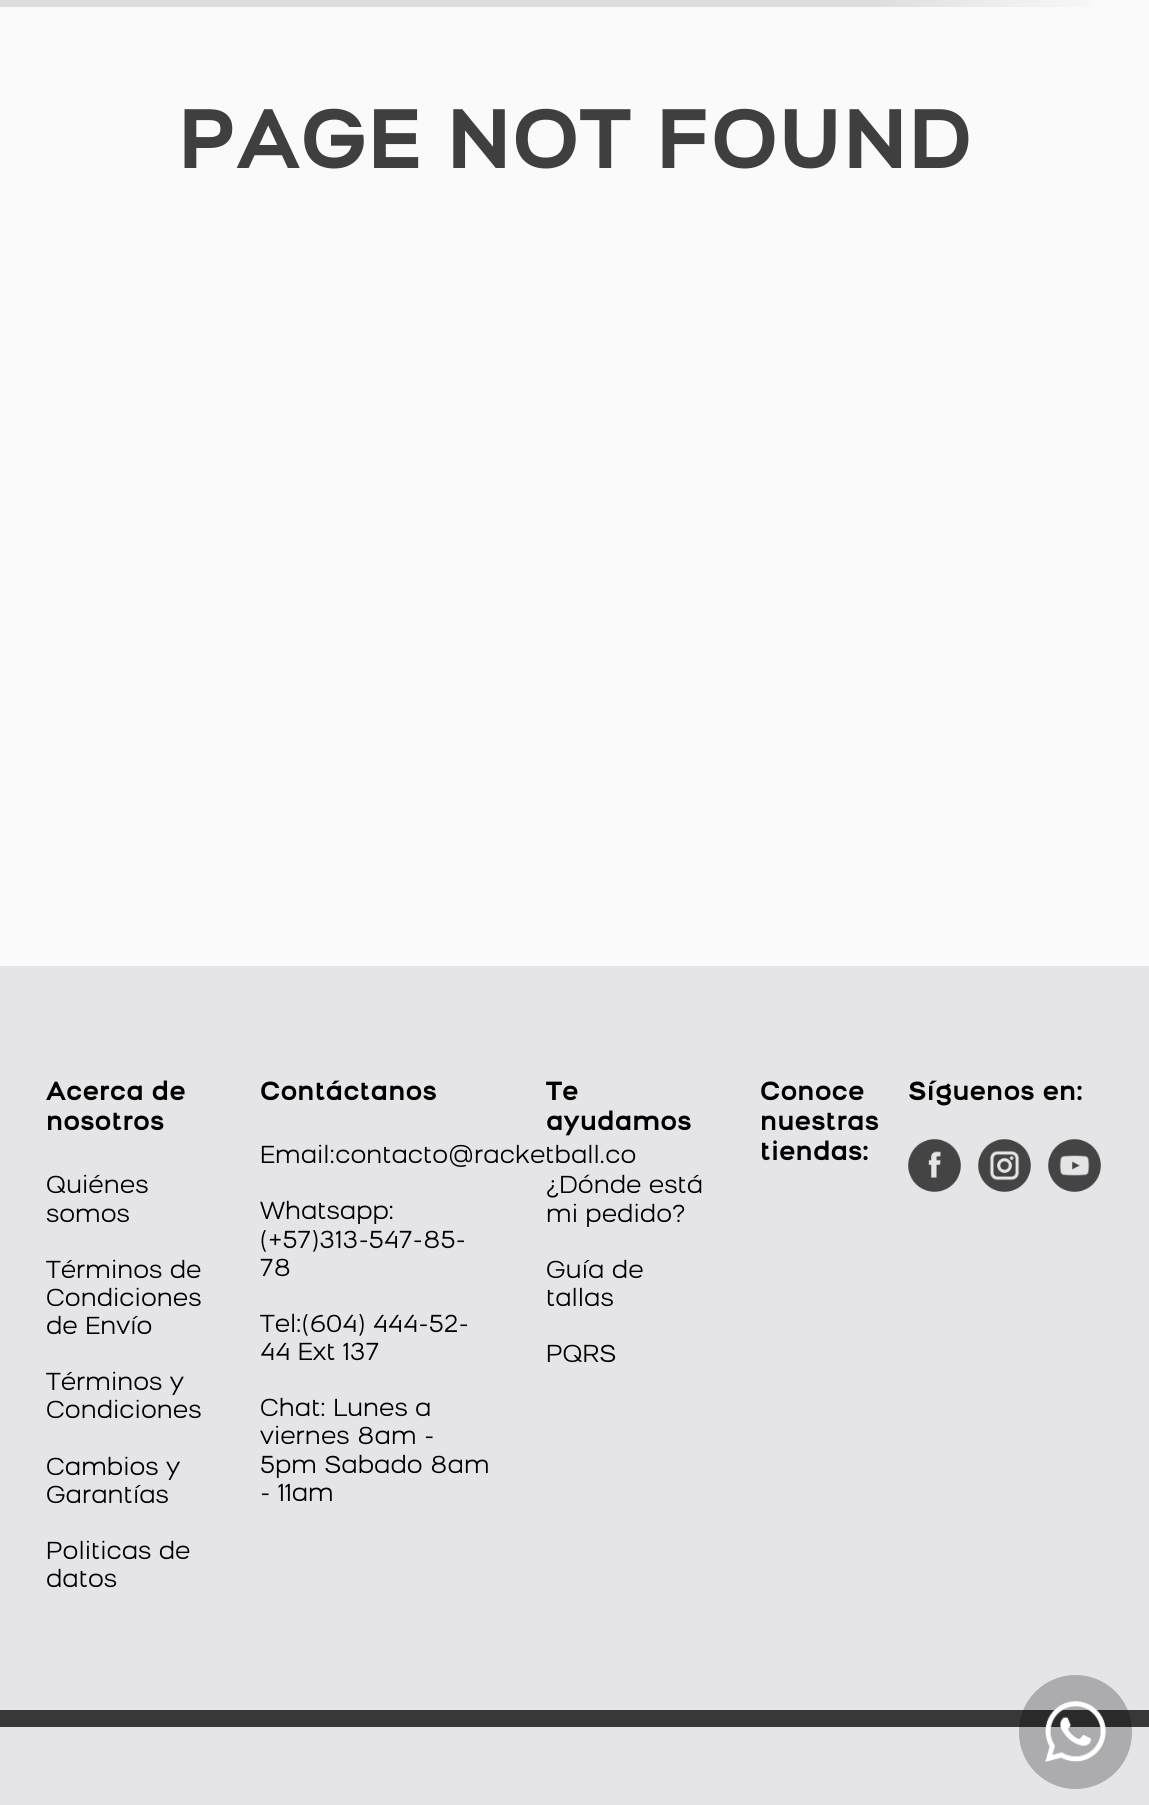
#include <cairo.h>
#include <math.h>
#include <stddef.h>


static void round_rect(cairo_t *cr, double x, double y, double w, double h, double r) {
    cairo_new_sub_path(cr);
    cairo_arc(cr, x + w - r, y + h - r, r, 0, M_PI / 2);
    cairo_arc(cr, x + r, y + h - r, r, M_PI / 2, M_PI);
    cairo_arc(cr, x + r, y + r, r, M_PI, 1.5 * M_PI);
    cairo_arc(cr, x + w - r, y + r, r, 1.5 * M_PI, 2 * M_PI);
    cairo_close_path(cr);
}

static void picture(cairo_t *cr, const char *path, double x, double y, double w, double h) {
    cairo_surface_t *image = cairo_image_surface_create_from_png(path);
    cairo_save(cr);
    cairo_set_source_surface(cr, image, x, y);
    cairo_rectangle(cr, x, y, w, h);
    cairo_fill(cr);
    cairo_restore(cr);
    cairo_surface_destroy(image);
}

int main(void) {
    cairo_surface_t *surface = cairo_image_surface_create(CAIRO_FORMAT_RGB24, 1149, 1805);
    cairo_t *cr = cairo_create(surface);
    cairo_font_options_t *options = cairo_font_options_create();
    cairo_font_options_set_hint_metrics(options, CAIRO_HINT_METRICS_OFF);
    cairo_font_options_set_hint_style(options, CAIRO_HINT_STYLE_NONE);
    cairo_set_font_options(cr, options);
    cairo_set_miter_limit(cr, 4);
    cairo_pattern_t *gradient;
    cairo_set_source_rgb(cr, 0.98, 0.98, 0.98);
    cairo_paint(cr);
    gradient = cairo_pattern_create_linear(0, 3.5, 1092, 3.5);
    cairo_pattern_add_color_stop_rgba(gradient, 0.8, 0.867, 0.867, 0.867, 1);
    cairo_pattern_add_color_stop_rgba(gradient, 0.9, 0.925, 0.925, 0.925, 1);
    cairo_pattern_add_color_stop_rgba(gradient, 1, 0.969, 0.969, 0.969, 1);
    cairo_set_source(cr, gradient);
    cairo_pattern_destroy(gradient);
    cairo_rectangle(cr, 0, 0, 1092, 7);
    cairo_fill(cr);
    cairo_select_font_face(cr, "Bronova", CAIRO_FONT_SLANT_NORMAL, CAIRO_FONT_WEIGHT_BOLD);
    cairo_set_font_size(cr, 84);
    cairo_set_source_rgb(cr, 0.247, 0.247, 0.251);
    cairo_move_to(cr, 178, 168);
    cairo_show_text(cr, "PAGE NOT FOUND");
    cairo_set_source_rgb(cr, 0.898, 0.894, 0.906);
    cairo_rectangle(cr, 0, 966, 1149, 839);
    cairo_fill(cr);
    cairo_set_font_size(cr, 26.25);
    cairo_set_source_rgb(cr, 0, 0, 0);
    cairo_move_to(cr, 46, 1100);
    cairo_show_text(cr, "Acerca de");
    cairo_move_to(cr, 46, 1130);
    cairo_show_text(cr, "nosotros");
    cairo_select_font_face(cr, "Bronova", CAIRO_FONT_SLANT_NORMAL, CAIRO_FONT_WEIGHT_NORMAL);
    cairo_set_font_size(cr, 24.5);
    cairo_move_to(cr, 46, 1193);
    cairo_show_text(cr, "Quiénes");
    cairo_move_to(cr, 46, 1222);
    cairo_show_text(cr, "somos");
    cairo_move_to(cr, 46, 1278);
    cairo_show_text(cr, "Términos de");
    cairo_move_to(cr, 46, 1306);
    cairo_show_text(cr, "Condiciones");
    cairo_move_to(cr, 46, 1334);
    cairo_show_text(cr, "de Envío");
    cairo_move_to(cr, 46, 1390);
    cairo_show_text(cr, "Términos y");
    cairo_move_to(cr, 46, 1418);
    cairo_show_text(cr, "Condiciones");
    cairo_move_to(cr, 46, 1475);
    cairo_show_text(cr, "Cambios y");
    cairo_move_to(cr, 46, 1503);
    cairo_show_text(cr, "Garantías");
    cairo_move_to(cr, 46, 1559);
    cairo_show_text(cr, "Politicas de");
    cairo_move_to(cr, 46, 1587);
    cairo_show_text(cr, "datos");
    cairo_select_font_face(cr, "Bronova", CAIRO_FONT_SLANT_NORMAL, CAIRO_FONT_WEIGHT_BOLD);
    cairo_set_font_size(cr, 26.25);
    cairo_move_to(cr, 260, 1100);
    cairo_show_text(cr, "Contáctanos");
    cairo_select_font_face(cr, "Bronova", CAIRO_FONT_SLANT_NORMAL, CAIRO_FONT_WEIGHT_NORMAL);
    cairo_set_font_size(cr, 24.5);
    cairo_move_to(cr, 260, 1163);
    cairo_show_text(cr, "Email:contacto@racketball.co");
    cairo_move_to(cr, 260, 1219);
    cairo_show_text(cr, "Whatsapp:");
    cairo_move_to(cr, 260, 1248);
    cairo_show_text(cr, "(+57)313-547-85-");
    cairo_move_to(cr, 260, 1276);
    cairo_show_text(cr, "78");
    cairo_move_to(cr, 260, 1332);
    cairo_show_text(cr, "Tel:(604) 444-52-");
    cairo_move_to(cr, 260, 1360);
    cairo_show_text(cr, "44 Ext 137");
    cairo_move_to(cr, 260, 1416);
    cairo_show_text(cr, "Chat: Lunes a");
    cairo_move_to(cr, 260, 1444);
    cairo_show_text(cr, "viernes 8am -");
    cairo_move_to(cr, 260, 1473);
    cairo_show_text(cr, "5pm Sabado 8am");
    cairo_move_to(cr, 260, 1501);
    cairo_show_text(cr, "- 11am");
    cairo_select_font_face(cr, "Bronova", CAIRO_FONT_SLANT_NORMAL, CAIRO_FONT_WEIGHT_BOLD);
    cairo_set_font_size(cr, 26.25);
    cairo_move_to(cr, 908, 1100);
    cairo_show_text(cr, "Síguenos en:");
    picture(cr, "img1.png", 908, 1139, 53, 53);
    picture(cr, "img2.png", 978, 1139, 53, 53);
    picture(cr, "img3.png", 1048, 1139, 53, 53);
    cairo_move_to(cr, 546, 1100);
    cairo_show_text(cr, "Te");
    cairo_move_to(cr, 546, 1130);
    cairo_show_text(cr, "ayudamos");
    cairo_select_font_face(cr, "Bronova", CAIRO_FONT_SLANT_NORMAL, CAIRO_FONT_WEIGHT_NORMAL);
    cairo_set_font_size(cr, 24.5);
    cairo_move_to(cr, 546, 1193);
    cairo_show_text(cr, "¿Dónde está");
    cairo_move_to(cr, 546, 1222);
    cairo_show_text(cr, "mi pedido?");
    cairo_move_to(cr, 546, 1278);
    cairo_show_text(cr, "Guía de");
    cairo_move_to(cr, 546, 1306);
    cairo_show_text(cr, "tallas");
    cairo_move_to(cr, 546, 1362);
    cairo_show_text(cr, "PQRS");
    cairo_select_font_face(cr, "Bronova", CAIRO_FONT_SLANT_NORMAL, CAIRO_FONT_WEIGHT_BOLD);
    cairo_set_font_size(cr, 26.25);
    cairo_move_to(cr, 760, 1100);
    cairo_show_text(cr, "Conoce");
    cairo_move_to(cr, 760, 1130);
    cairo_show_text(cr, "nuestras");
    cairo_move_to(cr, 760, 1160);
    cairo_show_text(cr, "tiendas:");
    cairo_set_source_rgb(cr, 0.22, 0.22, 0.22);
    cairo_rectangle(cr, 0, 1710, 1149, 17);
    cairo_fill(cr);
    cairo_set_source_rgba(cr, 0, 0, 0, 0.25);
    round_rect(cr, 1019, 1675, 113, 114, 56.5);
    cairo_fill(cr);
    picture(cr, "img4.png", 1045, 1701, 61, 61);
    cairo_surface_write_to_png(surface, "page.png");
    cairo_font_options_destroy(options);
    cairo_destroy(cr);
    cairo_surface_destroy(surface);
    return 0;
}
